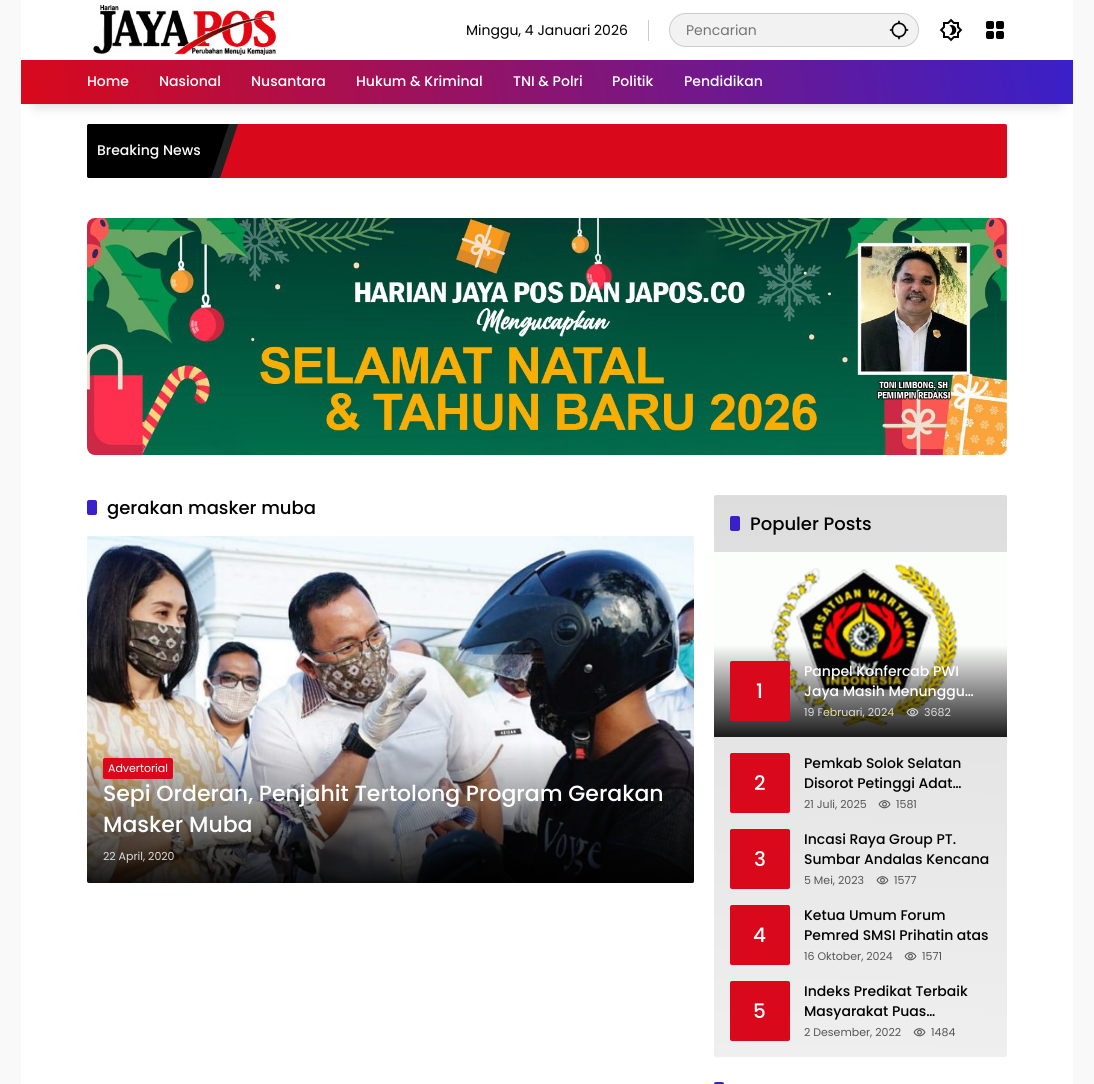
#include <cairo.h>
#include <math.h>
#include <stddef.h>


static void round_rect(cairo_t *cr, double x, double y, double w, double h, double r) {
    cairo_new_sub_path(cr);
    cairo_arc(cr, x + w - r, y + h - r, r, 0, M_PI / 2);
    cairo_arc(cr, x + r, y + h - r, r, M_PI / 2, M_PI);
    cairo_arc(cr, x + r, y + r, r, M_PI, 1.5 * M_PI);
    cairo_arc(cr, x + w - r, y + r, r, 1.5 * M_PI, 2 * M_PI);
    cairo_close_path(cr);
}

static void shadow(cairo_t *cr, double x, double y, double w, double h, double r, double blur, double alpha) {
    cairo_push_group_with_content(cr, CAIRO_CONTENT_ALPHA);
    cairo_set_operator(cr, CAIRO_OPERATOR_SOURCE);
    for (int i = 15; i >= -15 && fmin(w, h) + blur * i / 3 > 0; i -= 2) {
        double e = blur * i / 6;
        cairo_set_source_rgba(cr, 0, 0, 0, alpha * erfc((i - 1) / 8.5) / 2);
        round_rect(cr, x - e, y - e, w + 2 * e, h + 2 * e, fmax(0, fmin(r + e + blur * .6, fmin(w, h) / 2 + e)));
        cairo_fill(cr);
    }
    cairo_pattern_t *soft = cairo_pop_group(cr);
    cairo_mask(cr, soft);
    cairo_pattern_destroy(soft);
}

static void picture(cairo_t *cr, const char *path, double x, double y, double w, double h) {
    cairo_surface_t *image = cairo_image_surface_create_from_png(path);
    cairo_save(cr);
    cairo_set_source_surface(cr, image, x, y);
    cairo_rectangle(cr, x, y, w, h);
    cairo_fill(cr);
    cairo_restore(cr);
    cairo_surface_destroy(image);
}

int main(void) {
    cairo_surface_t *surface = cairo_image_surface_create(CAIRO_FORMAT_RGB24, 1094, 1084);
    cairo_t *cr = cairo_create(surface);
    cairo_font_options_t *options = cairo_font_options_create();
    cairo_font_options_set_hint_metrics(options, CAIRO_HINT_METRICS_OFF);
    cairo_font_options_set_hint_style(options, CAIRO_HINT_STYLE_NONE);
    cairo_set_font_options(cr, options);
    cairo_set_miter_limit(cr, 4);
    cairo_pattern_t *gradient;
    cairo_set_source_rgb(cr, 0.973, 0.973, 0.973);
    cairo_paint(cr);
    cairo_set_source_rgb(cr, 1, 1, 1);
    cairo_rectangle(cr, 21, 0, 1052, 1084);
    cairo_fill(cr);
    picture(cr, "img1.png", 93, 5, 186, 50);
    cairo_set_source_rgb(cr, 0.8, 0.8, 0.8);
    cairo_rectangle(cr, 648, 20, 1, 21);
    cairo_fill(cr);
    cairo_select_font_face(cr, "Poppins", CAIRO_FONT_SLANT_NORMAL, CAIRO_FONT_WEIGHT_NORMAL);
    cairo_set_font_size(cr, 14);
    cairo_set_source_rgb(cr, 0, 0, 0);
    cairo_move_to(cr, 466, 35);
    cairo_show_text(cr, "Minggu, 4 Januari 2026");
    cairo_set_source_rgb(cr, 0.949, 0.949, 0.949);
    round_rect(cr, 669.5, 13.5, 249, 33, 16.5);
    cairo_fill_preserve(cr);
    cairo_set_source_rgb(cr, 0.8, 0.8, 0.8);
    cairo_set_line_width(cr, 1);
    cairo_stroke(cr);
    cairo_set_source_rgb(cr, 0.459, 0.459, 0.459);
    cairo_move_to(cr, 686, 35);
    cairo_show_text(cr, "Pencarian");
    picture(cr, "img2.png", 889, 20, 20, 20);
    picture(cr, "img3.png", 939, 18, 24, 24);
    picture(cr, "img4.png", 986, 21, 18, 18);
    cairo_set_source_rgb(cr, 0.851, 0.035, 0.106);
    round_rect(cr, 87, 124, 920, 54, 2);
    cairo_fill(cr);
    cairo_set_source_rgb(cr, 0, 0, 0);
    cairo_new_path(cr);
    cairo_move_to(cr, 89, 124);
    cairo_line_to(cr, 211, 124);
    cairo_line_to(cr, 211, 178);
    cairo_line_to(cr, 89, 178);
    cairo_curve_to(cr, 88, 178, 87, 177, 87, 176);
    cairo_line_to(cr, 87, 126);
    cairo_curve_to(cr, 87, 125, 88, 124, 89, 124);
    cairo_close_path(cr);
    cairo_fill(cr);
    cairo_set_source_rgb(cr, 0.133, 0.133, 0.133);
    cairo_new_path(cr);
    cairo_move_to(cr, 228, 124);
    cairo_line_to(cr, 238, 124);
    cairo_line_to(cr, 220, 178);
    cairo_line_to(cr, 210, 178);
    cairo_close_path(cr);
    cairo_fill(cr);
    cairo_set_source_rgb(cr, 0, 0, 0);
    cairo_new_path(cr);
    cairo_move_to(cr, 211, 124);
    cairo_line_to(cr, 229, 124);
    cairo_line_to(cr, 211, 178);
    cairo_close_path(cr);
    cairo_fill(cr);
    cairo_set_source_rgb(cr, 0, 0, 0);
    shadow(cr, 36, 90, 1022, 14, 0, 7.5, 0.2);
    gradient = cairo_pattern_create_linear(33, 173, 1061, -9);
    cairo_pattern_add_color_stop_rgba(gradient, 0, 0.851, 0.035, 0.106, 1);
    cairo_pattern_add_color_stop_rgba(gradient, 1, 0.224, 0.125, 0.788, 1);
    cairo_set_source(cr, gradient);
    cairo_pattern_destroy(gradient);
    cairo_rectangle(cr, 21, 60, 1052, 44);
    cairo_fill(cr);
    cairo_select_font_face(cr, "Poppins Medium", CAIRO_FONT_SLANT_NORMAL, CAIRO_FONT_WEIGHT_NORMAL);
    cairo_set_source_rgb(cr, 1, 1, 1);
    cairo_move_to(cr, 87, 86);
    cairo_show_text(cr, "Home");
    cairo_move_to(cr, 159, 86);
    cairo_show_text(cr, "Nasional");
    cairo_move_to(cr, 251, 86);
    cairo_show_text(cr, "Nusantara");
    cairo_move_to(cr, 356, 86);
    cairo_show_text(cr, "Hukum & Kriminal");
    cairo_move_to(cr, 513, 86);
    cairo_show_text(cr, "TNI & Polri");
    cairo_move_to(cr, 612, 86);
    cairo_show_text(cr, "Politik");
    cairo_move_to(cr, 684, 86);
    cairo_show_text(cr, "Pendidikan");
    cairo_move_to(cr, 97, 155);
    cairo_show_text(cr, "Breaking News");
    picture(cr, "img5.png", 87, 218, 920, 237);
    cairo_set_source_rgb(cr, 0.224, 0.125, 0.788);
    round_rect(cr, 87, 500, 10, 15, 2);
    cairo_fill(cr);
    cairo_set_font_size(cr, 18);
    cairo_set_source_rgb(cr, 0, 0, 0);
    cairo_move_to(cr, 107, 514);
    cairo_show_text(cr, "gerakan masker muba");
    picture(cr, "img6.png", 87, 536, 607, 347);
    gradient = cairo_pattern_create_linear(391, 883, 391, 742);
    cairo_pattern_add_color_stop_rgba(gradient, 0, 0, 0, 0, 0.9);
    cairo_pattern_add_color_stop_rgba(gradient, 1, 0, 0, 0, 0);
    cairo_set_source(cr, gradient);
    cairo_pattern_destroy(gradient);
    cairo_new_path(cr);
    cairo_move_to(cr, 87, 742);
    cairo_line_to(cr, 694, 742);
    cairo_line_to(cr, 694, 881);
    cairo_curve_to(cr, 694, 882, 693, 883, 692, 883);
    cairo_line_to(cr, 89, 883);
    cairo_curve_to(cr, 88, 883, 87, 882, 87, 881);
    cairo_close_path(cr);
    cairo_fill(cr);
    cairo_set_source_rgb(cr, 0.851, 0.035, 0.106);
    round_rect(cr, 103, 758, 70, 21, 2);
    cairo_fill(cr);
    cairo_select_font_face(cr, "Poppins", CAIRO_FONT_SLANT_NORMAL, CAIRO_FONT_WEIGHT_NORMAL);
    cairo_set_font_size(cr, 11);
    cairo_set_source_rgb(cr, 1, 1, 1);
    cairo_move_to(cr, 108, 772);
    cairo_show_text(cr, "Advertorial");
    cairo_select_font_face(cr, "Poppins Medium", CAIRO_FONT_SLANT_NORMAL, CAIRO_FONT_WEIGHT_NORMAL);
    cairo_set_font_size(cr, 22);
    cairo_move_to(cr, 103, 801);
    cairo_show_text(cr, "Sepi Orderan, Penjahit Tertolong Program Gerakan");
    cairo_move_to(cr, 103, 832);
    cairo_show_text(cr, "Masker Muba");
    cairo_select_font_face(cr, "Poppins", CAIRO_FONT_SLANT_NORMAL, CAIRO_FONT_WEIGHT_NORMAL);
    cairo_set_font_size(cr, 11);
    cairo_set_source_rgb(cr, 0.867, 0.867, 0.867);
    cairo_move_to(cr, 103, 860);
    cairo_show_text(cr, "22 April, 2020");
    gradient = cairo_pattern_create_linear(856, 1059, 865, 493);
    cairo_pattern_add_color_stop_rgba(gradient, 0, 0.937, 0.937, 0.937, 1);
    cairo_pattern_add_color_stop_rgba(gradient, 1, 0.867, 0.867, 0.867, 1);
    cairo_set_source(cr, gradient);
    cairo_pattern_destroy(gradient);
    round_rect(cr, 714, 495, 293, 562, 2);
    cairo_fill(cr);
    cairo_set_source_rgb(cr, 0.224, 0.125, 0.788);
    round_rect(cr, 730, 516, 10, 15, 2);
    cairo_fill(cr);
    cairo_select_font_face(cr, "Poppins Medium", CAIRO_FONT_SLANT_NORMAL, CAIRO_FONT_WEIGHT_NORMAL);
    cairo_set_font_size(cr, 18);
    cairo_set_source_rgb(cr, 0, 0, 0);
    cairo_move_to(cr, 750, 530);
    cairo_show_text(cr, "Populer Posts");
    picture(cr, "img7.png", 714, 552, 293, 185);
    cairo_set_source_rgb(cr, 0.851, 0.035, 0.106);
    round_rect(cr, 730, 661, 60, 60, 2);
    cairo_fill(cr);
    cairo_set_font_size(cr, 20);
    cairo_set_source_rgb(cr, 1, 1, 1);
    cairo_move_to(cr, 756, 698);
    cairo_show_text(cr, "1");
    cairo_set_font_size(cr, 14);
    cairo_move_to(cr, 804, 676);
    cairo_show_text(cr, "Panpel Konfercab PWI");
    cairo_move_to(cr, 804, 696);
    cairo_show_text(cr, "Jaya Masih Menunggu…");
    cairo_select_font_face(cr, "Poppins", CAIRO_FONT_SLANT_NORMAL, CAIRO_FONT_WEIGHT_NORMAL);
    cairo_set_font_size(cr, 11);
    cairo_set_source_rgb(cr, 0.867, 0.867, 0.867);
    cairo_move_to(cr, 804, 716);
    cairo_show_text(cr, "19 Februari, 2024");
    picture(cr, "img8.png", 906, 708, 13, 9);
    cairo_move_to(cr, 924, 716);
    cairo_show_text(cr, "3682");
    cairo_set_source_rgb(cr, 0.851, 0.035, 0.106);
    round_rect(cr, 730, 753, 60, 60, 2);
    cairo_fill(cr);
    cairo_select_font_face(cr, "Poppins Medium", CAIRO_FONT_SLANT_NORMAL, CAIRO_FONT_WEIGHT_NORMAL);
    cairo_set_font_size(cr, 20);
    cairo_set_source_rgb(cr, 1, 1, 1);
    cairo_move_to(cr, 754, 790);
    cairo_show_text(cr, "2");
    cairo_set_font_size(cr, 14);
    cairo_set_source_rgb(cr, 0, 0, 0);
    cairo_move_to(cr, 804, 768);
    cairo_show_text(cr, "Pemkab Solok Selatan");
    cairo_move_to(cr, 804, 788);
    cairo_show_text(cr, "Disorot Petinggi Adat…");
    cairo_select_font_face(cr, "Poppins", CAIRO_FONT_SLANT_NORMAL, CAIRO_FONT_WEIGHT_NORMAL);
    cairo_set_font_size(cr, 11);
    cairo_set_source_rgb(cr, 0.333, 0.333, 0.333);
    cairo_move_to(cr, 804, 808);
    cairo_show_text(cr, "21 Juli, 2025");
    picture(cr, "img9.png", 878, 800, 13, 9);
    cairo_move_to(cr, 896, 808);
    cairo_show_text(cr, "1581");
    cairo_set_source_rgb(cr, 0.851, 0.035, 0.106);
    round_rect(cr, 730, 829, 60, 60, 2);
    cairo_fill(cr);
    cairo_select_font_face(cr, "Poppins Medium", CAIRO_FONT_SLANT_NORMAL, CAIRO_FONT_WEIGHT_NORMAL);
    cairo_set_font_size(cr, 20);
    cairo_set_source_rgb(cr, 1, 1, 1);
    cairo_move_to(cr, 754, 866);
    cairo_show_text(cr, "3");
    cairo_set_font_size(cr, 14);
    cairo_set_source_rgb(cr, 0, 0, 0);
    cairo_move_to(cr, 804, 844);
    cairo_show_text(cr, "Incasi Raya Group PT.");
    cairo_move_to(cr, 804, 864);
    cairo_show_text(cr, "Sumbar Andalas Kencana");
    cairo_select_font_face(cr, "Poppins", CAIRO_FONT_SLANT_NORMAL, CAIRO_FONT_WEIGHT_NORMAL);
    cairo_set_font_size(cr, 11);
    cairo_set_source_rgb(cr, 0.333, 0.333, 0.333);
    cairo_move_to(cr, 804, 884);
    cairo_show_text(cr, "5 Mei, 2023");
    picture(cr, "img10.png", 876, 876, 13, 9);
    cairo_move_to(cr, 894, 884);
    cairo_show_text(cr, "1577");
    cairo_set_source_rgb(cr, 0.851, 0.035, 0.106);
    round_rect(cr, 730, 905, 60, 60, 2);
    cairo_fill(cr);
    cairo_select_font_face(cr, "Poppins Medium", CAIRO_FONT_SLANT_NORMAL, CAIRO_FONT_WEIGHT_NORMAL);
    cairo_set_font_size(cr, 20);
    cairo_set_source_rgb(cr, 1, 1, 1);
    cairo_move_to(cr, 753, 942);
    cairo_show_text(cr, "4");
    cairo_set_font_size(cr, 14);
    cairo_set_source_rgb(cr, 0, 0, 0);
    cairo_move_to(cr, 804, 920);
    cairo_show_text(cr, "Ketua Umum Forum");
    cairo_move_to(cr, 804, 940);
    cairo_show_text(cr, "Pemred SMSI Prihatin atas");
    cairo_select_font_face(cr, "Poppins", CAIRO_FONT_SLANT_NORMAL, CAIRO_FONT_WEIGHT_NORMAL);
    cairo_set_font_size(cr, 11);
    cairo_set_source_rgb(cr, 0.333, 0.333, 0.333);
    cairo_move_to(cr, 804, 960);
    cairo_show_text(cr, "16 Oktober, 2024");
    picture(cr, "img11.png", 904, 952, 13, 9);
    cairo_move_to(cr, 922, 960);
    cairo_show_text(cr, "1571");
    cairo_set_source_rgb(cr, 0.851, 0.035, 0.106);
    round_rect(cr, 730, 981, 60, 60, 2);
    cairo_fill(cr);
    cairo_select_font_face(cr, "Poppins Medium", CAIRO_FONT_SLANT_NORMAL, CAIRO_FONT_WEIGHT_NORMAL);
    cairo_set_font_size(cr, 20);
    cairo_set_source_rgb(cr, 1, 1, 1);
    cairo_move_to(cr, 753, 1018);
    cairo_show_text(cr, "5");
    cairo_set_font_size(cr, 14);
    cairo_set_source_rgb(cr, 0, 0, 0);
    cairo_move_to(cr, 804, 996);
    cairo_show_text(cr, "Indeks Predikat Terbaik");
    cairo_move_to(cr, 804, 1016);
    cairo_show_text(cr, "Masyarakat Puas…");
    cairo_select_font_face(cr, "Poppins", CAIRO_FONT_SLANT_NORMAL, CAIRO_FONT_WEIGHT_NORMAL);
    cairo_set_font_size(cr, 11);
    cairo_set_source_rgb(cr, 0.333, 0.333, 0.333);
    cairo_move_to(cr, 804, 1036);
    cairo_show_text(cr, "2 Desember, 2022");
    picture(cr, "img12.png", 913, 1028, 13, 9);
    cairo_move_to(cr, 931, 1036);
    cairo_show_text(cr, "1484");
    cairo_set_source_rgb(cr, 0.224, 0.125, 0.788);
    round_rect(cr, 714, 1082, 10, 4, 2);
    cairo_fill(cr);
    cairo_surface_write_to_png(surface, "page.png");
    cairo_font_options_destroy(options);
    cairo_destroy(cr);
    cairo_surface_destroy(surface);
    return 0;
}
